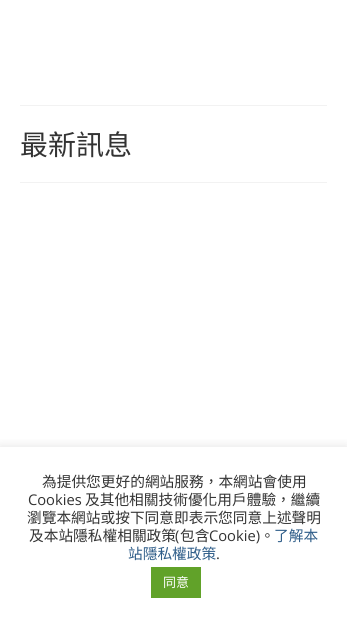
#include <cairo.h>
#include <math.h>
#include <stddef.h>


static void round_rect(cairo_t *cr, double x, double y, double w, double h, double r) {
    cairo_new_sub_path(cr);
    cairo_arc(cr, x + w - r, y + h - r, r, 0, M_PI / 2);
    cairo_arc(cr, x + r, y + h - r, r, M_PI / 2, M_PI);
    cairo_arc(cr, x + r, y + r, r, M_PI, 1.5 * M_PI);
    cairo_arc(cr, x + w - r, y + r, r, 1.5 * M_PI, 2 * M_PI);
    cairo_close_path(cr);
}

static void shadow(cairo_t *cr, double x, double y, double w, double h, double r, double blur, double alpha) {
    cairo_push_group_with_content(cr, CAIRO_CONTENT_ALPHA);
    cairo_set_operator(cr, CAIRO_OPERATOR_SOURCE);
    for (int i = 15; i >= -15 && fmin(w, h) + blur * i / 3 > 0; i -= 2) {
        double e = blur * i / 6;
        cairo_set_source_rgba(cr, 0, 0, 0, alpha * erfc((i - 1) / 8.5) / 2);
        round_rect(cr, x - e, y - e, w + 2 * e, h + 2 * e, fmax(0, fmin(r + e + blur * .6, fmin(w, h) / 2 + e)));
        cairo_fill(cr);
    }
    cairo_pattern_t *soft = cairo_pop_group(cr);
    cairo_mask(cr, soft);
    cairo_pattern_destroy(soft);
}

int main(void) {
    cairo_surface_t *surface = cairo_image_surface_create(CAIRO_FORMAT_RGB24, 347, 623);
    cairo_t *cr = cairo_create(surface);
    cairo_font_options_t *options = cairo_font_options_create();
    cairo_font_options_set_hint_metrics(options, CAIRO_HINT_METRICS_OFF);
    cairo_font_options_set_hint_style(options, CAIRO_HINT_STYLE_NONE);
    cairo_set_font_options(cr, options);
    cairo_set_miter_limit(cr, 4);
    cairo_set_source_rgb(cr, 1, 1, 1);
    cairo_paint(cr);
    cairo_set_source_rgb(cr, 0.949, 0.949, 0.949);
    cairo_rectangle(cr, 20, 105, 307, 1);
    cairo_fill(cr);
    cairo_rectangle(cr, 20, 182, 307, 1);
    cairo_fill(cr);
    cairo_select_font_face(cr, "Noto Sans CJK TC", CAIRO_FONT_SLANT_NORMAL, CAIRO_FONT_WEIGHT_NORMAL);
    cairo_set_font_size(cr, 28);
    cairo_set_source_rgb(cr, 0.2, 0.2, 0.2);
    cairo_move_to(cr, 20, 155);
    cairo_show_text(cr, "最新訊息");
    cairo_save(cr);
    cairo_rectangle(cr, 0, 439, 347, 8);
    cairo_clip(cr);
    cairo_set_source_rgb(cr, 0.675, 0.671, 0.671);
    shadow(cr, 0, 446, 347, 176, 0, 5, 0.3);
    cairo_restore(cr);
    cairo_set_font_size(cr, 14.7);
    cairo_move_to(cr, 42, 487);
    cairo_show_text(cr, "為提供您更好的網站服務，本網站會使用");
    cairo_select_font_face(cr, "Open Sans", CAIRO_FONT_SLANT_NORMAL, CAIRO_FONT_WEIGHT_NORMAL);
    cairo_move_to(cr, 28, 505);
    cairo_show_text(cr, "Cookies");
    cairo_select_font_face(cr, "Noto Sans CJK TC", CAIRO_FONT_SLANT_NORMAL, CAIRO_FONT_WEIGHT_NORMAL);
    cairo_move_to(cr, 85, 505);
    cairo_show_text(cr, "及其他相關技術優化用戶體驗，繼續");
    cairo_move_to(cr, 27, 523);
    cairo_show_text(cr, "瀏覽本網站或按下同意即表示您同意上述聲明");
    cairo_move_to(cr, 29, 541);
    cairo_show_text(cr, "及本站隱私權相關政策");
    cairo_select_font_face(cr, "Open Sans", CAIRO_FONT_SLANT_NORMAL, CAIRO_FONT_WEIGHT_NORMAL);
    cairo_move_to(cr, 175, 541);
    cairo_show_text(cr, "(");
    cairo_select_font_face(cr, "Noto Sans CJK TC", CAIRO_FONT_SLANT_NORMAL, CAIRO_FONT_WEIGHT_NORMAL);
    cairo_move_to(cr, 180, 541);
    cairo_show_text(cr, "包含");
    cairo_select_font_face(cr, "Open Sans", CAIRO_FONT_SLANT_NORMAL, CAIRO_FONT_WEIGHT_NORMAL);
    cairo_move_to(cr, 209, 541);
    cairo_show_text(cr, "Cookie)");
    cairo_select_font_face(cr, "Noto Sans CJK TC", CAIRO_FONT_SLANT_NORMAL, CAIRO_FONT_WEIGHT_NORMAL);
    cairo_move_to(cr, 260, 541);
    cairo_show_text(cr, "。");
    cairo_set_source_rgb(cr, 0.176, 0.361, 0.533);
    cairo_move_to(cr, 274, 541);
    cairo_show_text(cr, "了解本");
    cairo_move_to(cr, 128, 559);
    cairo_show_text(cr, "站隱私權政策");
    cairo_select_font_face(cr, "Open Sans", CAIRO_FONT_SLANT_NORMAL, CAIRO_FONT_WEIGHT_NORMAL);
    cairo_set_source_rgb(cr, 0.2, 0.2, 0.2);
    cairo_move_to(cr, 216, 559);
    cairo_show_text(cr, ".");
    cairo_set_source_rgb(cr, 0.38, 0.635, 0.161);
    cairo_rectangle(cr, 151, 567, 50, 31);
    cairo_fill(cr);
    cairo_select_font_face(cr, "Noto Sans CJK TC", CAIRO_FONT_SLANT_NORMAL, CAIRO_FONT_WEIGHT_NORMAL);
    cairo_set_font_size(cr, 13);
    cairo_set_source_rgb(cr, 1, 1, 1);
    cairo_move_to(cr, 163, 587);
    cairo_show_text(cr, "同意");
    cairo_surface_write_to_png(surface, "page.png");
    cairo_font_options_destroy(options);
    cairo_destroy(cr);
    cairo_surface_destroy(surface);
    return 0;
}
